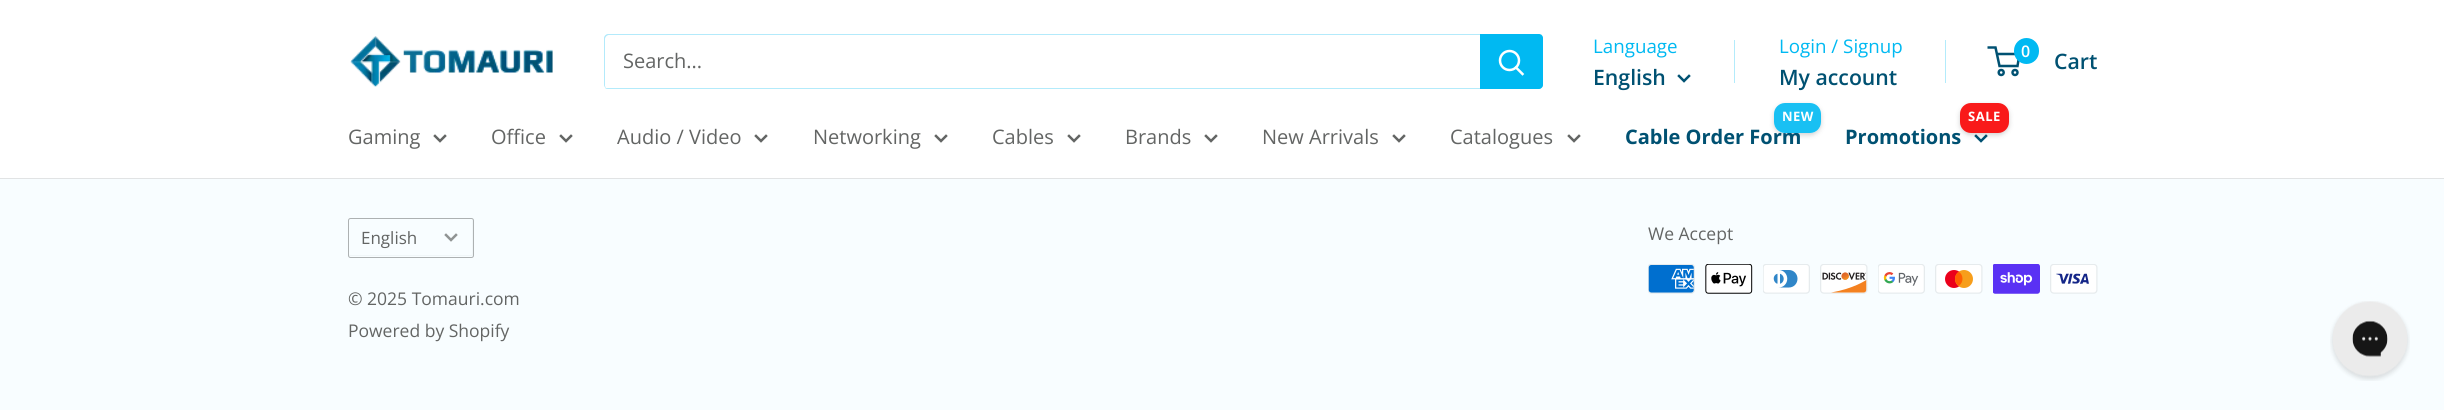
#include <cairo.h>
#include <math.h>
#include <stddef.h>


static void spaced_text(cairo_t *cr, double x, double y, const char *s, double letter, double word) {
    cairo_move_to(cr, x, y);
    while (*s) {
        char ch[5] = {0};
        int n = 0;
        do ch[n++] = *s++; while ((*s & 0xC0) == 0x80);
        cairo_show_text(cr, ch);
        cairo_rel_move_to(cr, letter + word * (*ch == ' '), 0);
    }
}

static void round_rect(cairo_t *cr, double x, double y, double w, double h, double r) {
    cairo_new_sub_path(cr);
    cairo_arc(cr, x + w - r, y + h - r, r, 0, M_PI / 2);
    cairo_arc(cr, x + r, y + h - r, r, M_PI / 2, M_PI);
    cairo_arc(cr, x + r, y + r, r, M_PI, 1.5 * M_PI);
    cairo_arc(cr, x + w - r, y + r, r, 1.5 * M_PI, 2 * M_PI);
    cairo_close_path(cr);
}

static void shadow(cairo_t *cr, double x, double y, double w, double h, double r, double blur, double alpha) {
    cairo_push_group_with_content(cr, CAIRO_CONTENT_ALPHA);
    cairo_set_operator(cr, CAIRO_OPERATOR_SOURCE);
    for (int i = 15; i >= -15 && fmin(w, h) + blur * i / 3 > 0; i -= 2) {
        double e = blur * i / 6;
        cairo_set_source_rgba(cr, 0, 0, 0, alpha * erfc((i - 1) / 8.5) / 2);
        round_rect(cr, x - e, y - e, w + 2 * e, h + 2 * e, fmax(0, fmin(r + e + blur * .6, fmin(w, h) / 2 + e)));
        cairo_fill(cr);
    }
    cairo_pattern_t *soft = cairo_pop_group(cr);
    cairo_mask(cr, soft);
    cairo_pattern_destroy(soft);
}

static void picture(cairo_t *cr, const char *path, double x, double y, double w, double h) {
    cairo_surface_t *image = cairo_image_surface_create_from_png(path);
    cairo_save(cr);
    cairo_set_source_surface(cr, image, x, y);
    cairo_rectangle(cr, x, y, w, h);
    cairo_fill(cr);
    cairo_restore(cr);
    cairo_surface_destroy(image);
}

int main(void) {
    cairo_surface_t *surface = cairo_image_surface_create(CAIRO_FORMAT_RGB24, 2444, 410);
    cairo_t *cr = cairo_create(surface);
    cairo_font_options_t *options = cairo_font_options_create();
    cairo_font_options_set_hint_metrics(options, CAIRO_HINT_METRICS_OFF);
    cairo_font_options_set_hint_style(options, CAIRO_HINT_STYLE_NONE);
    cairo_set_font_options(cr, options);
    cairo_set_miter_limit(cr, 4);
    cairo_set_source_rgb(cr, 0.969, 0.992, 1);
    cairo_paint(cr);
    cairo_set_source_rgb(cr, 1, 1, 1);
    cairo_rectangle(cr, 0, 0, 2444, 178);
    cairo_fill(cr);
    picture(cr, "img1.png", 350, 36, 203, 51);
    cairo_set_source_rgb(cr, 0.702, 0.918, 0.984);
    cairo_new_path(cr);
    cairo_move_to(cr, 605, 88);
    cairo_curve_to(cr, 606, 89, 607, 89, 608, 89);
    cairo_line_to(cr, 1539, 89);
    cairo_curve_to(cr, 1541, 89, 1543, 87, 1543, 85);
    cairo_line_to(cr, 1543, 38);
    cairo_curve_to(cr, 1543, 36, 1542, 35, 1541, 34);
    cairo_line_to(cr, 1541, 76);
    cairo_curve_to(cr, 1541, 77, 1543, 88, 1538, 88);
    cairo_close_path(cr);
    cairo_fill(cr);
    cairo_set_source_rgba(cr, 0, 0.725, 0.949, 0.3);
    cairo_new_path(cr);
    cairo_move_to(cr, 609, 35);
    cairo_line_to(cr, 1540, 35);
    cairo_line_to(cr, 1542, 36);
    cairo_curve_to(cr, 1542, 35, 1540, 34, 1539, 34);
    cairo_line_to(cr, 608, 34);
    cairo_curve_to(cr, 606, 34, 604, 36, 604, 38);
    cairo_line_to(cr, 604, 85);
    cairo_curve_to(cr, 604, 86, 605, 88, 606, 88);
    cairo_line_to(cr, 605, 86);
    cairo_line_to(cr, 605, 39);
    cairo_curve_to(cr, 605, 37, 607, 35, 609, 35);
    cairo_close_path(cr);
    cairo_fill(cr);
    cairo_select_font_face(cr, "Open Sans", CAIRO_FONT_SLANT_NORMAL, CAIRO_FONT_WEIGHT_NORMAL);
    cairo_set_font_size(cr, 20);
    cairo_set_source_rgb(cr, 0.388, 0.396, 0.392);
    cairo_move_to(cr, 623, 68);
    cairo_show_text(cr, "Search...");
    cairo_set_source_rgb(cr, 0, 0.725, 0.949);
    cairo_new_path(cr);
    cairo_move_to(cr, 1480, 34);
    cairo_line_to(cr, 1539, 34);
    cairo_curve_to(cr, 1541, 34, 1543, 36, 1543, 38);
    cairo_line_to(cr, 1543, 85);
    cairo_curve_to(cr, 1543, 87, 1541, 89, 1539, 89);
    cairo_line_to(cr, 1480, 89);
    cairo_close_path(cr);
    cairo_fill(cr);
    cairo_new_path(cr);
    cairo_move_to(cr, 1522.5, 74);
    cairo_line_to(cr, 1516, 67.5);
    cairo_set_source_rgb(cr, 1, 1, 1);
    cairo_set_line_width(cr, 2.5);
    cairo_set_line_cap(cr, CAIRO_LINE_CAP_SQUARE);
    cairo_stroke(cr);
    cairo_arc(cr, 1509.5, 60.5, 9.5, 0, 2 * M_PI);
    cairo_set_line_cap(cr, CAIRO_LINE_CAP_BUTT);
    cairo_stroke(cr);
    cairo_set_font_size(cr, 18.75);
    cairo_set_source_rgb(cr, 0, 0.725, 0.949);
    cairo_move_to(cr, 1593, 53);
    cairo_show_text(cr, "Language");
    cairo_select_font_face(cr, "Open Sans SemiBold", CAIRO_FONT_SLANT_NORMAL, CAIRO_FONT_WEIGHT_NORMAL);
    cairo_set_font_size(cr, 21.25);
    cairo_set_source_rgb(cr, 0, 0.318, 0.447);
    cairo_move_to(cr, 1593, 85);
    cairo_show_text(cr, "English");
    cairo_new_path(cr);
    cairo_move_to(cr, 1689, 76);
    cairo_line_to(cr, 1684, 81);
    cairo_line_to(cr, 1679, 76);
    cairo_set_line_cap(cr, CAIRO_LINE_CAP_SQUARE);
    cairo_stroke(cr);
    cairo_set_source_rgb(cr, 0.702, 0.918, 0.984);
    cairo_rectangle(cr, 1734, 40, 1, 43);
    cairo_fill(cr);
    cairo_select_font_face(cr, "Open Sans", CAIRO_FONT_SLANT_NORMAL, CAIRO_FONT_WEIGHT_NORMAL);
    cairo_set_font_size(cr, 18.75);
    cairo_set_source_rgb(cr, 0, 0.725, 0.949);
    cairo_move_to(cr, 1779, 53);
    cairo_show_text(cr, "Login / Signup");
    cairo_set_source_rgb(cr, 0.702, 0.918, 0.984);
    cairo_rectangle(cr, 1945, 40, 1, 43);
    cairo_fill(cr);
    cairo_select_font_face(cr, "Open Sans SemiBold", CAIRO_FONT_SLANT_NORMAL, CAIRO_FONT_WEIGHT_NORMAL);
    cairo_set_font_size(cr, 21.25);
    cairo_set_source_rgb(cr, 0, 0.318, 0.447);
    cairo_move_to(cr, 1779, 85);
    cairo_show_text(cr, "My account");
    cairo_new_path(cr);
    cairo_arc(cr, 2001.2, 72.5, 2.5, 0, 2 * M_PI);
    cairo_set_line_cap(cr, CAIRO_LINE_CAP_BUTT);
    cairo_stroke(cr);
    cairo_arc(cr, 2015, 72.5, 2.5, 0, 2 * M_PI);
    cairo_stroke(cr);
    cairo_new_path(cr);
    cairo_move_to(cr, 1996.5, 54);
    cairo_line_to(cr, 2019.5, 54);
    cairo_line_to(cr, 2017.5, 66);
    cairo_line_to(cr, 1999.5, 66);
    cairo_line_to(cr, 1995.5, 47.5);
    cairo_line_to(cr, 1987.5, 47.5);
    cairo_stroke(cr);
    cairo_set_source_rgb(cr, 0, 0.725, 0.949);
    round_rect(cr, 2014, 38, 25, 26, 12.5);
    cairo_fill(cr);
    cairo_set_font_size(cr, 16);
    cairo_set_source_rgb(cr, 1, 1, 1);
    cairo_move_to(cr, 2021, 57);
    cairo_show_text(cr, "0");
    cairo_set_font_size(cr, 21.25);
    cairo_set_source_rgb(cr, 0, 0.318, 0.447);
    cairo_move_to(cr, 2054, 69);
    cairo_show_text(cr, "Cart");
    cairo_set_source_rgb(cr, 0.882, 0.89, 0.894);
    cairo_rectangle(cr, 0, 178, 2444, 1);
    cairo_fill(cr);
    cairo_select_font_face(cr, "Open Sans", CAIRO_FONT_SLANT_NORMAL, CAIRO_FONT_WEIGHT_NORMAL);
    cairo_set_font_size(cr, 20);
    cairo_set_source_rgb(cr, 0.388, 0.396, 0.392);
    cairo_move_to(cr, 348, 144);
    cairo_show_text(cr, "Gaming");
    cairo_new_path(cr);
    cairo_move_to(cr, 445, 136);
    cairo_line_to(cr, 440, 141);
    cairo_line_to(cr, 435, 136);
    cairo_set_line_cap(cr, CAIRO_LINE_CAP_SQUARE);
    cairo_stroke(cr);
    cairo_move_to(cr, 491, 144);
    cairo_show_text(cr, "Office");
    cairo_new_path(cr);
    cairo_move_to(cr, 571, 136);
    cairo_line_to(cr, 566, 141);
    cairo_line_to(cr, 561, 136);
    cairo_stroke(cr);
    cairo_move_to(cr, 617, 144);
    cairo_show_text(cr, "Audio / Video");
    cairo_new_path(cr);
    cairo_move_to(cr, 766, 136);
    cairo_line_to(cr, 761, 141);
    cairo_line_to(cr, 756, 136);
    cairo_stroke(cr);
    cairo_move_to(cr, 813, 144);
    cairo_show_text(cr, "Networking");
    cairo_new_path(cr);
    cairo_move_to(cr, 946, 136);
    cairo_line_to(cr, 941, 141);
    cairo_line_to(cr, 936, 136);
    cairo_stroke(cr);
    cairo_move_to(cr, 992, 144);
    cairo_show_text(cr, "Cables");
    cairo_new_path(cr);
    cairo_move_to(cr, 1079, 136);
    cairo_line_to(cr, 1074, 141);
    cairo_line_to(cr, 1069, 136);
    cairo_stroke(cr);
    cairo_move_to(cr, 1125, 144);
    cairo_show_text(cr, "Brands");
    cairo_new_path(cr);
    cairo_move_to(cr, 1216, 136);
    cairo_line_to(cr, 1211, 141);
    cairo_line_to(cr, 1206, 136);
    cairo_stroke(cr);
    cairo_move_to(cr, 1262, 144);
    cairo_show_text(cr, "New Arrivals");
    cairo_new_path(cr);
    cairo_move_to(cr, 1404, 136);
    cairo_line_to(cr, 1399, 141);
    cairo_line_to(cr, 1394, 136);
    cairo_stroke(cr);
    cairo_move_to(cr, 1450, 144);
    cairo_show_text(cr, "Catalogues");
    cairo_new_path(cr);
    cairo_move_to(cr, 1579, 136);
    cairo_line_to(cr, 1574, 141);
    cairo_line_to(cr, 1569, 136);
    cairo_stroke(cr);
    cairo_save(cr);
    cairo_set_fill_rule(cr, CAIRO_FILL_RULE_EVEN_ODD);
    cairo_new_path(cr);
    cairo_move_to(cr, 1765, 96);
    cairo_line_to(cr, 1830, 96);
    cairo_line_to(cr, 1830, 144);
    cairo_line_to(cr, 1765, 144);
    cairo_close_path(cr);
    cairo_move_to(cr, 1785, 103);
    cairo_line_to(cr, 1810, 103);
    cairo_curve_to(cr, 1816, 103, 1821, 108, 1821, 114);
    cairo_line_to(cr, 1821, 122);
    cairo_curve_to(cr, 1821, 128, 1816, 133, 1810, 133);
    cairo_line_to(cr, 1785, 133);
    cairo_curve_to(cr, 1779, 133, 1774, 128, 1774, 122);
    cairo_line_to(cr, 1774, 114);
    cairo_curve_to(cr, 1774, 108, 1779, 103, 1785, 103);
    cairo_close_path(cr);
    cairo_clip(cr);
    cairo_set_source_rgb(cr, 0, 0, 0);
    shadow(cr, 1774, 105, 47, 30, 11, 2.5, 0.18);
    cairo_restore(cr);
    cairo_select_font_face(cr, "Open Sans", CAIRO_FONT_SLANT_NORMAL, CAIRO_FONT_WEIGHT_BOLD);
    cairo_set_source_rgb(cr, 0, 0.318, 0.447);
    cairo_move_to(cr, 1625, 144);
    cairo_show_text(cr, "Cable Order Form");
    cairo_set_source_rgba(cr, 0.004, 0.725, 0.949, 0.9);
    round_rect(cr, 1774, 103, 47, 30, 11);
    cairo_fill(cr);
    cairo_set_font_size(cr, 13);
    cairo_set_source_rgb(cr, 1, 1, 1);
    spaced_text(cr, 1782, 121, "NEW", 0.5, 0);
    cairo_new_path(cr);
    cairo_move_to(cr, 1986, 136);
    cairo_line_to(cr, 1981, 141);
    cairo_line_to(cr, 1976, 136);
    cairo_set_source_rgb(cr, 0, 0.318, 0.447);
    cairo_stroke(cr);
    cairo_set_source_rgb(cr, 0, 0, 0);
    shadow(cr, 1960, 105, 49, 30, 11, 2.5, 0.18);
    cairo_set_font_size(cr, 20);
    cairo_set_source_rgb(cr, 0, 0.318, 0.447);
    cairo_move_to(cr, 1845, 144);
    cairo_show_text(cr, "Promotions");
    cairo_set_source_rgb(cr, 0.973, 0.102, 0.102);
    round_rect(cr, 1960, 103, 49, 30, 11);
    cairo_fill(cr);
    cairo_set_font_size(cr, 13);
    cairo_set_source_rgb(cr, 1, 1, 1);
    spaced_text(cr, 1968, 121, "SALE", 0.5, 0);
    cairo_set_source_rgb(cr, 0.941, 0.961, 0.969);
    cairo_new_path(cr);
    cairo_move_to(cr, 349, 254);
    cairo_line_to(cr, 349, 255);
    cairo_curve_to(cr, 349, 256, 349, 256, 350, 256);
    cairo_line_to(cr, 472, 256);
    cairo_curve_to(cr, 473, 256, 473, 256, 473, 255);
    cairo_line_to(cr, 473, 220);
    cairo_curve_to(cr, 473, 219, 473, 219, 472, 219);
    cairo_line_to(cr, 472, 254);
    cairo_curve_to(cr, 472, 254, 472, 255, 471, 255);
    cairo_line_to(cr, 350, 255);
    cairo_curve_to(cr, 349, 255, 349, 254, 349, 254);
    cairo_close_path(cr);
    cairo_fill(cr);
    round_rect(cr, 348.5, 218.5, 125, 39, 2);
    cairo_set_source_rgb(cr, 0.678, 0.694, 0.698);
    cairo_set_line_width(cr, 1);
    cairo_set_line_cap(cr, CAIRO_LINE_CAP_BUTT);
    cairo_stroke(cr);
    cairo_select_font_face(cr, "Open Sans", CAIRO_FONT_SLANT_NORMAL, CAIRO_FONT_WEIGHT_NORMAL);
    cairo_set_font_size(cr, 17);
    cairo_set_source_rgb(cr, 0.388, 0.396, 0.392);
    cairo_move_to(cr, 361, 244);
    cairo_show_text(cr, "English");
    cairo_new_path(cr);
    cairo_move_to(cr, 456, 235);
    cairo_line_to(cr, 451, 240);
    cairo_line_to(cr, 446, 235);
    cairo_set_source_rgb(cr, 0.561, 0.576, 0.576);
    cairo_set_line_width(cr, 2.5);
    cairo_set_line_cap(cr, CAIRO_LINE_CAP_SQUARE);
    cairo_stroke(cr);
    cairo_set_font_size(cr, 17.5);
    cairo_set_source_rgb(cr, 0.388, 0.396, 0.392);
    cairo_move_to(cr, 348, 305);
    cairo_show_text(cr, "© 2025 Tomauri.com");
    cairo_move_to(cr, 348, 337);
    cairo_show_text(cr, "Powered by Shopify");
    cairo_move_to(cr, 1648, 240);
    cairo_show_text(cr, "We Accept");
    picture(cr, "img2.png", 1648, 264, 47, 30);
    picture(cr, "img3.png", 1705, 264, 48, 30);
    picture(cr, "img4.png", 1763, 264, 47, 30);
    picture(cr, "img5.png", 1820, 264, 48, 30);
    picture(cr, "img6.png", 1878, 264, 47, 30);
    picture(cr, "img7.png", 1935, 264, 48, 30);
    picture(cr, "img8.png", 1993, 264, 47, 30);
    picture(cr, "img9.png", 2050, 264, 48, 30);
    picture(cr, "img10.png", 2330, 301, 80, 80);
    cairo_surface_write_to_png(surface, "page.png");
    cairo_font_options_destroy(options);
    cairo_destroy(cr);
    cairo_surface_destroy(surface);
    return 0;
}
